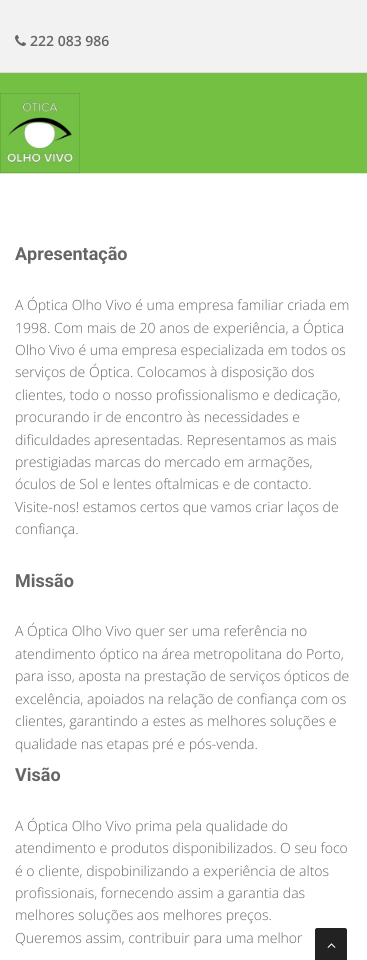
#include <cairo.h>
#include <math.h>
#include <stddef.h>


static void picture(cairo_t *cr, const char *path, double x, double y, double w, double h) {
    cairo_surface_t *image = cairo_image_surface_create_from_png(path);
    cairo_save(cr);
    cairo_set_source_surface(cr, image, x, y);
    cairo_rectangle(cr, x, y, w, h);
    cairo_fill(cr);
    cairo_restore(cr);
    cairo_surface_destroy(image);
}

int main(void) {
    cairo_surface_t *surface = cairo_image_surface_create(CAIRO_FORMAT_RGB24, 367, 960);
    cairo_t *cr = cairo_create(surface);
    cairo_font_options_t *options = cairo_font_options_create();
    cairo_font_options_set_hint_metrics(options, CAIRO_HINT_METRICS_OFF);
    cairo_font_options_set_hint_style(options, CAIRO_HINT_STYLE_NONE);
    cairo_set_font_options(cr, options);
    cairo_set_miter_limit(cr, 4);
    cairo_set_source_rgb(cr, 0.949, 0.949, 0.949);
    cairo_paint(cr);
    cairo_set_source_rgb(cr, 0.867, 0.867, 0.867);
    cairo_rectangle(cr, 0, 72, 367, 1);
    cairo_fill(cr);
    picture(cr, "img1.png", 15, 35, 11, 11);
    cairo_select_font_face(cr, "Open Sans SemiBold", CAIRO_FONT_SLANT_NORMAL, CAIRO_FONT_WEIGHT_NORMAL);
    cairo_set_font_size(cr, 14);
    cairo_set_source_rgb(cr, 0.396, 0.396, 0.396);
    cairo_move_to(cr, 30, 46);
    cairo_show_text(cr, "222 083 986");
    cairo_set_source_rgb(cr, 0.455, 0.753, 0.263);
    cairo_rectangle(cr, 0, 73, 367, 100);
    cairo_fill(cr);
    cairo_set_source_rgb(cr, 0.839, 0.914, 0.776);
    cairo_rectangle(cr, 0, 173, 367, 1);
    cairo_fill(cr);
    picture(cr, "img2.png", 0, 93, 80, 80);
    cairo_set_source_rgb(cr, 1, 1, 1);
    cairo_rectangle(cr, 0, 174, 367, 786);
    cairo_fill(cr);
    cairo_select_font_face(cr, "Roboto", CAIRO_FONT_SLANT_NORMAL, CAIRO_FONT_WEIGHT_BOLD);
    cairo_set_font_size(cr, 18);
    cairo_set_source_rgb(cr, 0.396, 0.396, 0.396);
    cairo_move_to(cr, 15, 260);
    cairo_show_text(cr, "Apresentação");
    cairo_select_font_face(cr, "Open Sans Light", CAIRO_FONT_SLANT_NORMAL, CAIRO_FONT_WEIGHT_NORMAL);
    cairo_set_font_size(cr, 14);
    cairo_move_to(cr, 15, 310);
    cairo_show_text(cr, "A Óptica Olho Vivo é uma empresa familiar criada em");
    cairo_move_to(cr, 15, 333);
    cairo_show_text(cr, "1998. Com mais de 20 anos de experiência, a Óptica");
    cairo_move_to(cr, 15, 355);
    cairo_show_text(cr, "Olho Vivo é uma empresa especializada em todos os");
    cairo_move_to(cr, 15, 377);
    cairo_show_text(cr, "serviços de Óptica. Colocamos à disposição dos");
    cairo_move_to(cr, 15, 400);
    cairo_show_text(cr, "clientes, todo o nosso profissionalismo e dedicação,");
    cairo_move_to(cr, 15, 422);
    cairo_show_text(cr, "procurando ir de encontro às necessidades e");
    cairo_move_to(cr, 15, 445);
    cairo_show_text(cr, "dificuldades apresentadas. Representamos as mais");
    cairo_move_to(cr, 15, 467);
    cairo_show_text(cr, "prestigiadas marcas do mercado em armações,");
    cairo_move_to(cr, 15, 489);
    cairo_show_text(cr, "óculos de Sol e lentes oftalmicas e de contacto.");
    cairo_move_to(cr, 15, 512);
    cairo_show_text(cr, "Visite-nos! estamos certos que vamos criar laços de");
    cairo_move_to(cr, 15, 534);
    cairo_show_text(cr, "confiança.");
    cairo_select_font_face(cr, "Roboto", CAIRO_FONT_SLANT_NORMAL, CAIRO_FONT_WEIGHT_BOLD);
    cairo_set_font_size(cr, 18);
    cairo_move_to(cr, 15, 587);
    cairo_show_text(cr, "Missão");
    cairo_select_font_face(cr, "Open Sans Light", CAIRO_FONT_SLANT_NORMAL, CAIRO_FONT_WEIGHT_NORMAL);
    cairo_set_font_size(cr, 14);
    cairo_move_to(cr, 15, 636);
    cairo_show_text(cr, "A Óptica Olho Vivo quer ser uma referência no");
    cairo_move_to(cr, 15, 659);
    cairo_show_text(cr, "atendimento óptico na área metropolitana do Porto,");
    cairo_move_to(cr, 15, 681);
    cairo_show_text(cr, "para isso, aposta na prestação de serviços ópticos de");
    cairo_move_to(cr, 15, 704);
    cairo_show_text(cr, "excelência, apoiados na relação de confiança com os");
    cairo_move_to(cr, 15, 726);
    cairo_show_text(cr, "clientes, garantindo a estes as melhores soluções e");
    cairo_move_to(cr, 15, 749);
    cairo_show_text(cr, "qualidade nas etapas pré e pós-venda.");
    cairo_select_font_face(cr, "Roboto", CAIRO_FONT_SLANT_NORMAL, CAIRO_FONT_WEIGHT_BOLD);
    cairo_set_font_size(cr, 18);
    cairo_move_to(cr, 15, 781);
    cairo_show_text(cr, "Visão");
    cairo_select_font_face(cr, "Open Sans Light", CAIRO_FONT_SLANT_NORMAL, CAIRO_FONT_WEIGHT_NORMAL);
    cairo_set_font_size(cr, 14);
    cairo_move_to(cr, 15, 831);
    cairo_show_text(cr, "A Óptica Olho Vivo prima pela qualidade do");
    cairo_move_to(cr, 15, 853);
    cairo_show_text(cr, "atendimento e produtos disponibilizados. O seu foco");
    cairo_move_to(cr, 15, 876);
    cairo_show_text(cr, "é o cliente, dispobinilizando a experiência de altos");
    cairo_move_to(cr, 15, 898);
    cairo_show_text(cr, "profissionais, fornecendo assim a garantia das");
    cairo_move_to(cr, 15, 920);
    cairo_show_text(cr, "melhores soluções aos melhores preços.");
    cairo_move_to(cr, 15, 943);
    cairo_show_text(cr, "Queremos assim, contribuir para uma melhor");
    cairo_set_source_rgb(cr, 0.133, 0.133, 0.133);
    cairo_new_path(cr);
    cairo_move_to(cr, 317, 928);
    cairo_line_to(cr, 345, 928);
    cairo_curve_to(cr, 346, 928, 347, 929, 347, 930);
    cairo_line_to(cr, 347, 960);
    cairo_line_to(cr, 315, 960);
    cairo_line_to(cr, 315, 930);
    cairo_curve_to(cr, 315, 929, 316, 928, 317, 928);
    cairo_close_path(cr);
    cairo_fill(cr);
    picture(cr, "img3.png", 327, 943, 9, 5);
    cairo_surface_write_to_png(surface, "page.png");
    cairo_font_options_destroy(options);
    cairo_destroy(cr);
    cairo_surface_destroy(surface);
    return 0;
}
